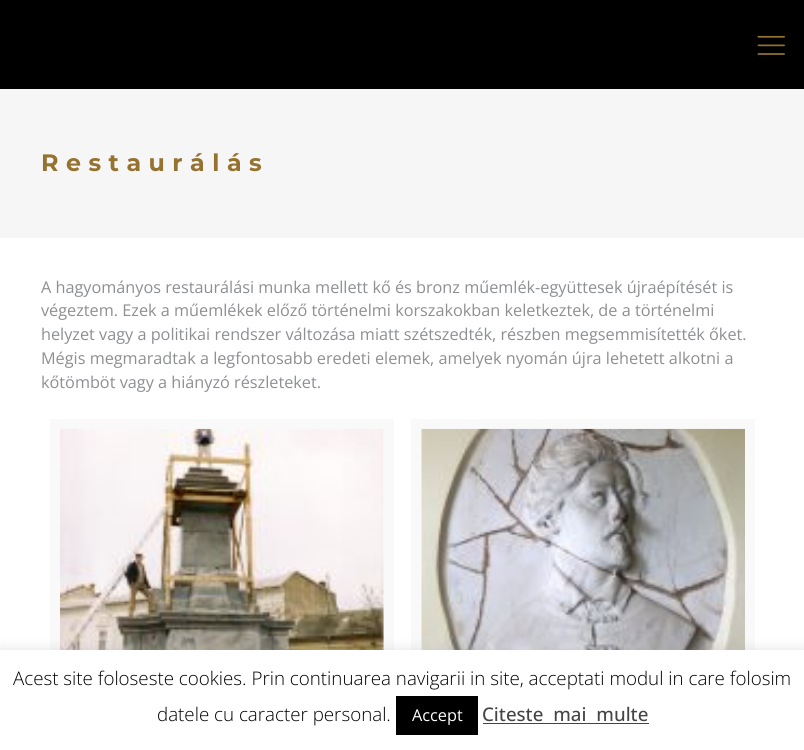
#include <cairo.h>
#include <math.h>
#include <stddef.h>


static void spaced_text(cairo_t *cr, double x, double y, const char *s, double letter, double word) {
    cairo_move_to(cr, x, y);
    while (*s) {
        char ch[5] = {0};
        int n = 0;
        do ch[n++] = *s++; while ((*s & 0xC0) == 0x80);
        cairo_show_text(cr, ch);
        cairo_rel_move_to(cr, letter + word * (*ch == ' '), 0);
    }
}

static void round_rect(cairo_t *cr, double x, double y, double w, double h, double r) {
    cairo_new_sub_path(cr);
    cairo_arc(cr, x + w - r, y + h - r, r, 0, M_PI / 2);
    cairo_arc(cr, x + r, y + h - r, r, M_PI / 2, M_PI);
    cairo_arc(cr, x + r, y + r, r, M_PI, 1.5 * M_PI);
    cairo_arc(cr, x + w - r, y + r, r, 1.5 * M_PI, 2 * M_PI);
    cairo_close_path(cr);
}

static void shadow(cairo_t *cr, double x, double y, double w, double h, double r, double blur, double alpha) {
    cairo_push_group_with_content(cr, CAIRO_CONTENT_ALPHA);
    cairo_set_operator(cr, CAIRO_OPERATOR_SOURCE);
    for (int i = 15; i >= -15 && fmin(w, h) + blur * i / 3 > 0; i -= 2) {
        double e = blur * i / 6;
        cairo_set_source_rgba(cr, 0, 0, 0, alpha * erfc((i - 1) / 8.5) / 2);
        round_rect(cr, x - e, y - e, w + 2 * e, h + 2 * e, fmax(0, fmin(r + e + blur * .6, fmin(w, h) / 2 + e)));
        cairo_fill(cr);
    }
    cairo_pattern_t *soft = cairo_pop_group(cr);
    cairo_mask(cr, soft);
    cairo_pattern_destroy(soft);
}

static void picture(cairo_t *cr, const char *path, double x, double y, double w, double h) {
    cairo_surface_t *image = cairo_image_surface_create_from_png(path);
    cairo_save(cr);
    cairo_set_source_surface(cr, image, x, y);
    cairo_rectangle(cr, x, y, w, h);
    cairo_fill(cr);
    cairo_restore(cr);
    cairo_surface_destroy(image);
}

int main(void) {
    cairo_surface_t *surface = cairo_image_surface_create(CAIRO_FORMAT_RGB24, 804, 750);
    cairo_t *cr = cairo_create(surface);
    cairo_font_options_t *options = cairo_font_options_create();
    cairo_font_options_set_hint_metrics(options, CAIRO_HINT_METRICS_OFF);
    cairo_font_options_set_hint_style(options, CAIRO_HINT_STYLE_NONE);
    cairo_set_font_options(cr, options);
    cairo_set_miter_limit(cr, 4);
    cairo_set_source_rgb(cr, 0, 0, 0);
    cairo_paint(cr);
    picture(cr, "img1.png", 757, 35, 28, 20);
    cairo_set_source_rgb(cr, 1, 1, 1);
    cairo_rectangle(cr, 0, 238, 804, 412);
    cairo_fill(cr);
    cairo_set_source_rgb(cr, 0.961, 0.961, 0.961);
    cairo_rectangle(cr, 0, 89, 804, 149);
    cairo_fill(cr);
    cairo_select_font_face(cr, "Montserrat", CAIRO_FONT_SLANT_NORMAL, CAIRO_FONT_WEIGHT_BOLD);
    cairo_set_font_size(cr, 23.75);
    cairo_set_source_rgb(cr, 0.584, 0.447, 0.188);
    spaced_text(cr, 41, 171, "Restaurálás", 7.5, 0);
    cairo_select_font_face(cr, "Open Sans", CAIRO_FONT_SLANT_NORMAL, CAIRO_FONT_WEIGHT_NORMAL);
    cairo_set_font_size(cr, 16.25);
    cairo_set_source_rgb(cr, 0.553, 0.561, 0.573);
    cairo_move_to(cr, 41, 293);
    cairo_show_text(cr, "A hagyományos restaurálási munka mellett kő és bronz műemlék-együttesek újraépítését is");
    cairo_move_to(cr, 41, 316);
    cairo_show_text(cr, "végeztem. Ezek a műemlékek előző történelmi korszakokban keletkeztek, de a történelmi");
    cairo_move_to(cr, 41, 340);
    cairo_show_text(cr, "helyzet vagy a politikai rendszer változása miatt szétszedték, részben megsemmisítették őket.");
    cairo_move_to(cr, 41, 364);
    cairo_show_text(cr, "Mégis megmaradtak a legfontosabb eredeti elemek, amelyek nyomán újra lehetett alkotni a");
    cairo_move_to(cr, 41, 388);
    cairo_show_text(cr, "kőtömböt vagy a hiányzó részleteket.");
    cairo_rectangle(cr, 55, 424, 334, 315);
    cairo_set_source_rgb(cr, 0.973, 0.973, 0.973);
    cairo_set_line_width(cr, 10);
    cairo_stroke(cr);
    picture(cr, "img2.png", 60, 428, 324, 222);
    cairo_rectangle(cr, 416, 424, 334, 315);
    cairo_stroke(cr);
    picture(cr, "img3.png", 421, 428, 324, 222);
    cairo_set_source_rgb(cr, 0.675, 0.671, 0.671);
    shadow(cr, 0, 649, 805, 100, 0, 6, 0.3);
    cairo_set_source_rgb(cr, 1, 1, 1);
    cairo_rectangle(cr, 0, 650, 804, 100);
    cairo_fill(cr);
    cairo_select_font_face(cr, "Open Sans Light", CAIRO_FONT_SLANT_NORMAL, CAIRO_FONT_WEIGHT_NORMAL);
    cairo_set_font_size(cr, 18.75);
    cairo_set_source_rgb(cr, 0, 0, 0);
    cairo_move_to(cr, 13, 685);
    cairo_show_text(cr, "Acest site foloseste cookies. Prin continuarea navigarii in site, acceptati modul in care folosim");
    cairo_move_to(cr, 157, 721);
    cairo_show_text(cr, "datele cu caracter personal.");
    cairo_rectangle(cr, 396, 696, 82, 39);
    cairo_fill(cr);
    cairo_select_font_face(cr, "Open Sans", CAIRO_FONT_SLANT_NORMAL, CAIRO_FONT_WEIGHT_NORMAL);
    cairo_set_font_size(cr, 16.25);
    cairo_set_source_rgb(cr, 1, 1, 1);
    cairo_move_to(cr, 412, 721);
    cairo_show_text(cr, "Accept");
    cairo_select_font_face(cr, "Open Sans Medium", CAIRO_FONT_SLANT_NORMAL, CAIRO_FONT_WEIGHT_NORMAL);
    cairo_set_font_size(cr, 18.75);
    cairo_set_source_rgb(cr, 0.267, 0.267, 0.267);
    spaced_text(cr, 482, 721, "Citeste mai multe", 0, 5);
    cairo_rectangle(cr, 483, 723, 166, 1);
    cairo_fill(cr);
    cairo_surface_write_to_png(surface, "page.png");
    cairo_font_options_destroy(options);
    cairo_destroy(cr);
    cairo_surface_destroy(surface);
    return 0;
}
